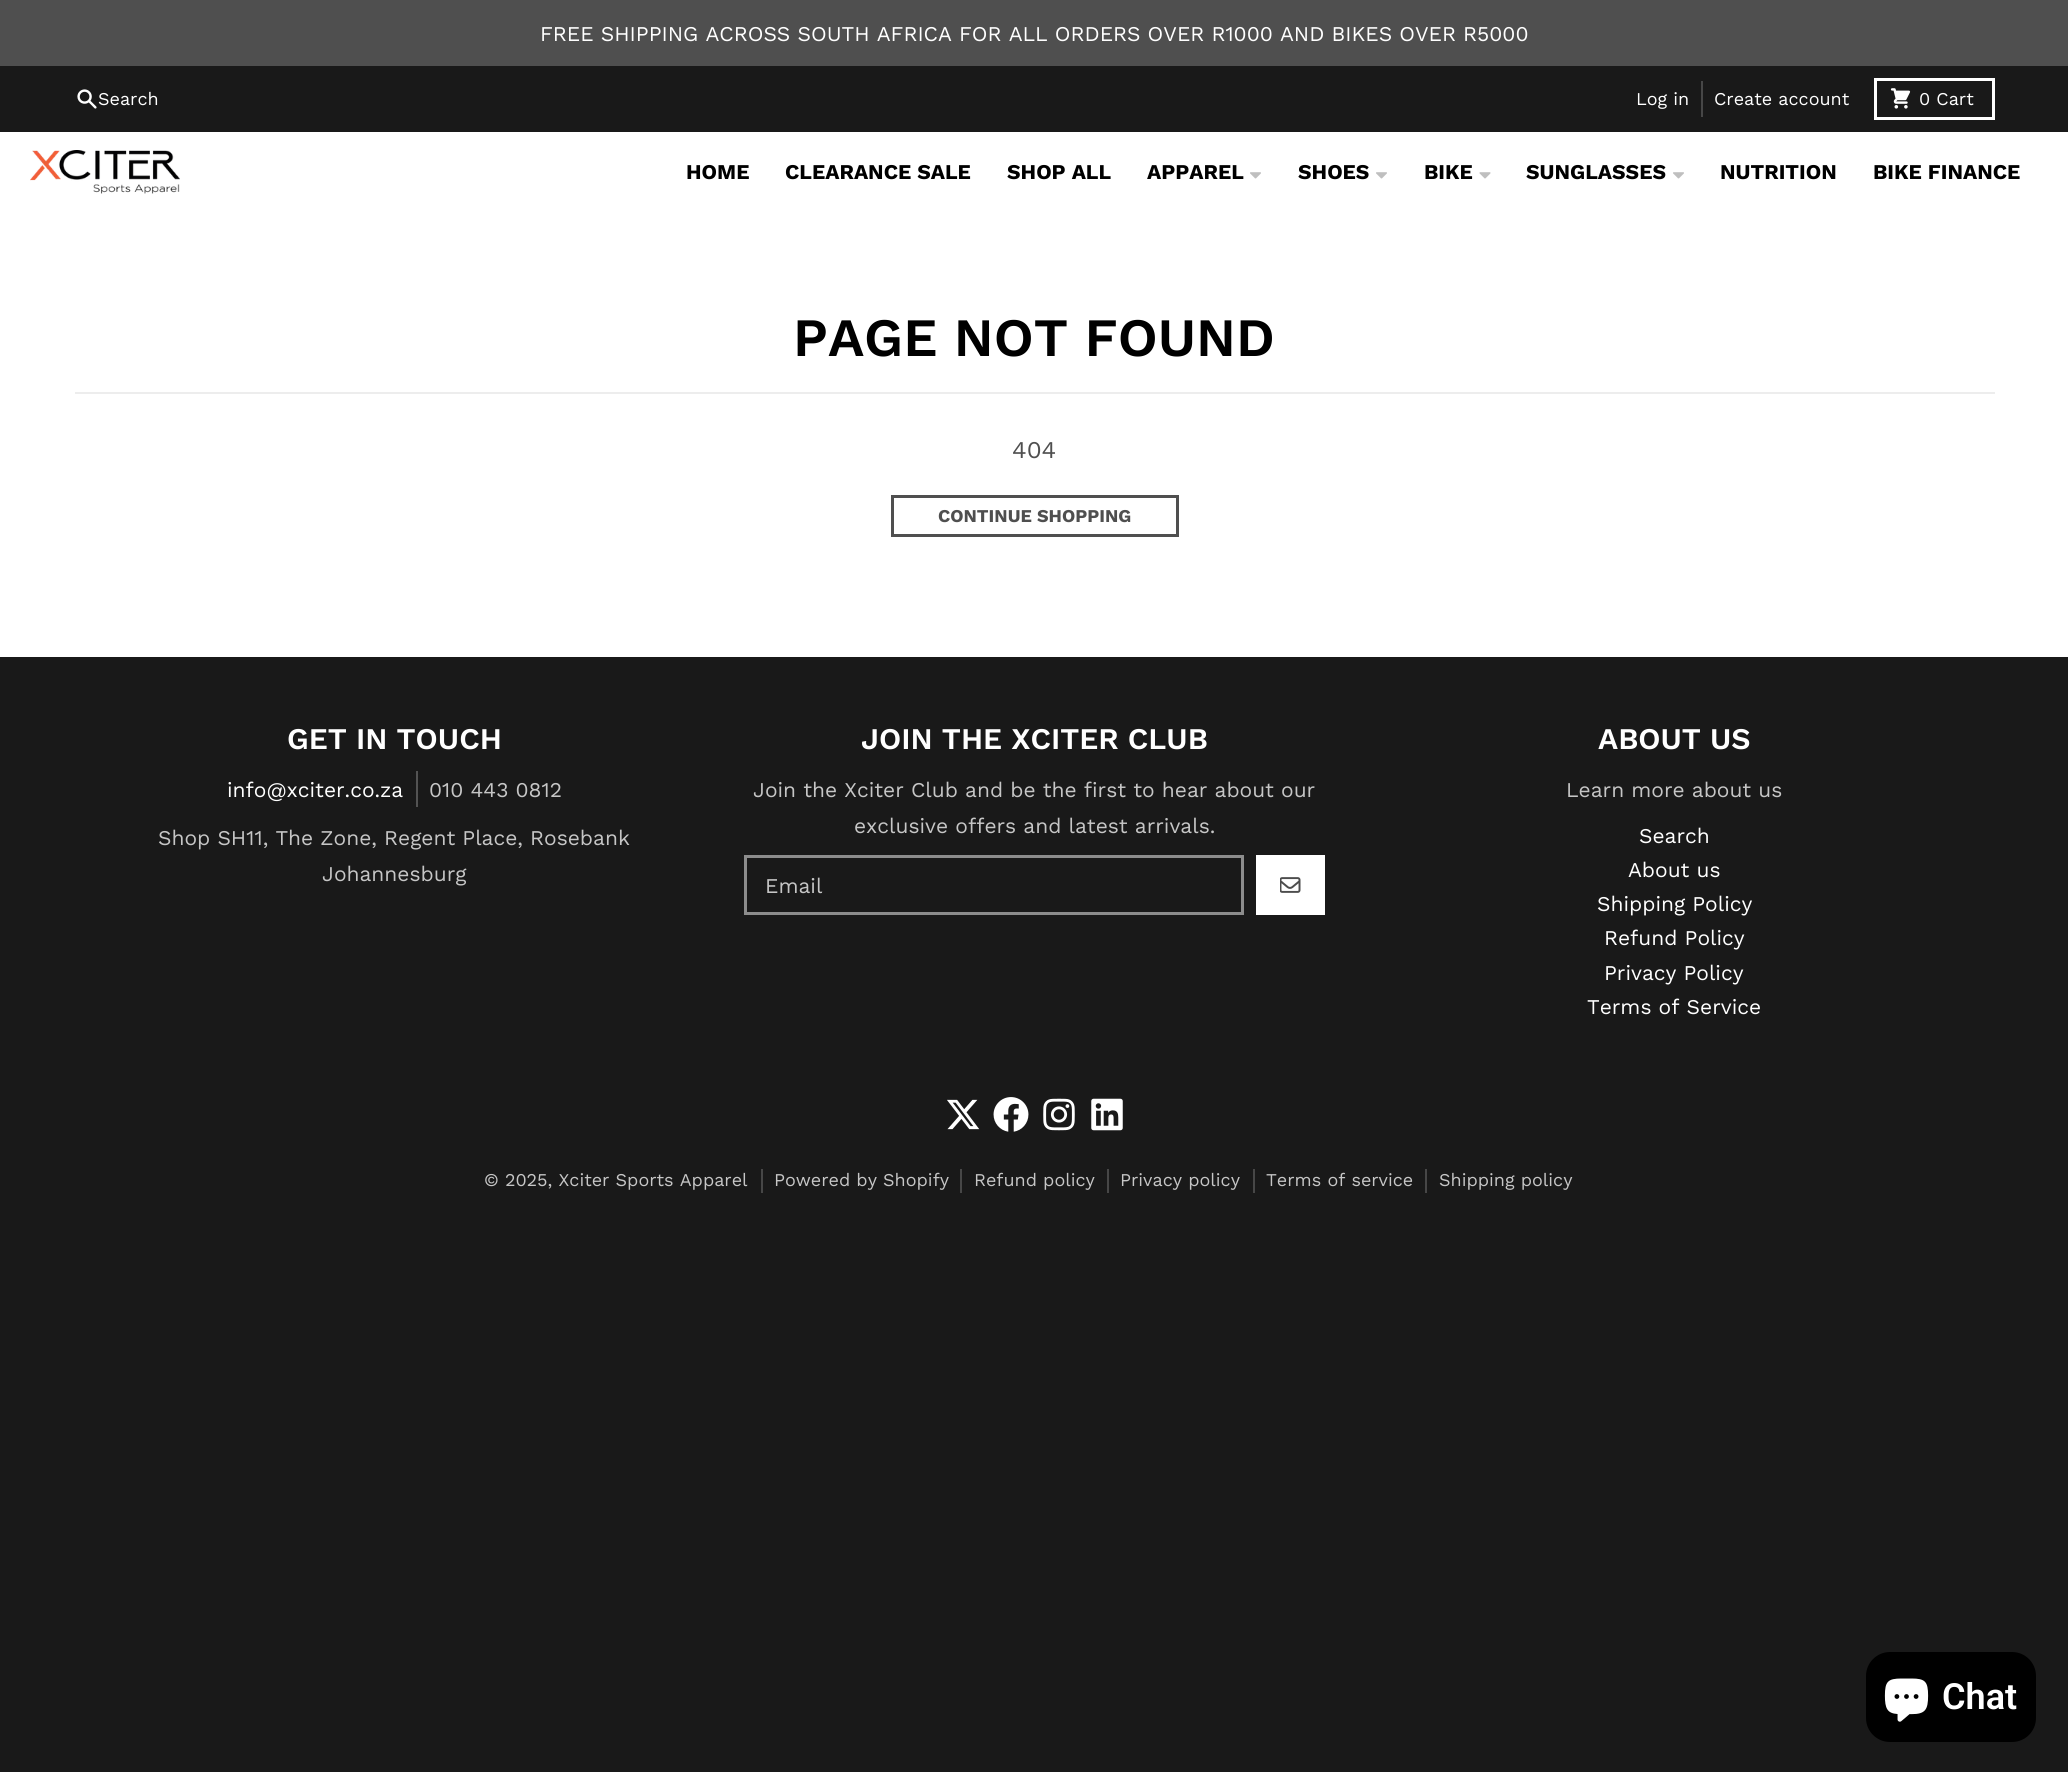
#include <cairo.h>
#include <math.h>
#include <stddef.h>


static void round_rect(cairo_t *cr, double x, double y, double w, double h, double r) {
    cairo_new_sub_path(cr);
    cairo_arc(cr, x + w - r, y + h - r, r, 0, M_PI / 2);
    cairo_arc(cr, x + r, y + h - r, r, M_PI / 2, M_PI);
    cairo_arc(cr, x + r, y + r, r, M_PI, 1.5 * M_PI);
    cairo_arc(cr, x + w - r, y + r, r, 1.5 * M_PI, 2 * M_PI);
    cairo_close_path(cr);
}

static void picture(cairo_t *cr, const char *path, double x, double y, double w, double h) {
    cairo_surface_t *image = cairo_image_surface_create_from_png(path);
    cairo_save(cr);
    cairo_set_source_surface(cr, image, x, y);
    cairo_rectangle(cr, x, y, w, h);
    cairo_fill(cr);
    cairo_restore(cr);
    cairo_surface_destroy(image);
}

int main(void) {
    cairo_surface_t *surface = cairo_image_surface_create(CAIRO_FORMAT_RGB24, 2068, 1772);
    cairo_t *cr = cairo_create(surface);
    cairo_font_options_t *options = cairo_font_options_create();
    cairo_font_options_set_hint_metrics(options, CAIRO_HINT_METRICS_OFF);
    cairo_font_options_set_hint_style(options, CAIRO_HINT_STYLE_NONE);
    cairo_set_font_options(cr, options);
    cairo_set_miter_limit(cr, 4);
    cairo_set_source_rgb(cr, 0.098, 0.098, 0.098);
    cairo_paint(cr);
    cairo_set_source_rgb(cr, 0.31, 0.31, 0.31);
    cairo_rectangle(cr, 0, 0, 2068, 66);
    cairo_fill(cr);
    cairo_select_font_face(cr, "Work Sans", CAIRO_FONT_SLANT_NORMAL, CAIRO_FONT_WEIGHT_NORMAL);
    cairo_set_font_size(cr, 21);
    cairo_set_source_rgb(cr, 1, 1, 1);
    cairo_move_to(cr, 540, 41);
    cairo_show_text(cr, "FREE SHIPPING ACROSS SOUTH AFRICA FOR ALL ORDERS OVER R1000 AND BIKES OVER R5000");
    picture(cr, "img1.png", 77, 89, 20, 20);
    cairo_set_font_size(cr, 18);
    cairo_move_to(cr, 98, 105);
    cairo_show_text(cr, "Search");
    cairo_move_to(cr, 1636, 105);
    cairo_show_text(cr, "Log in");
    cairo_set_source_rgb(cr, 0.278, 0.278, 0.278);
    cairo_rectangle(cr, 1701, 81, 2, 36);
    cairo_fill(cr);
    cairo_set_source_rgb(cr, 1, 1, 1);
    cairo_move_to(cr, 1714, 105);
    cairo_show_text(cr, "Create account");
    cairo_rectangle(cr, 1875.5, 79.5, 118, 39);
    cairo_set_line_width(cr, 3);
    cairo_stroke(cr);
    picture(cr, "img2.png", 1890, 88, 21, 21);
    cairo_move_to(cr, 1919, 105);
    cairo_show_text(cr, "0 Cart");
    cairo_rectangle(cr, 0, 132, 2068, 525);
    cairo_fill(cr);
    picture(cr, "img3.png", 30, 150, 150, 44);
    cairo_select_font_face(cr, "Work Sans", CAIRO_FONT_SLANT_NORMAL, CAIRO_FONT_WEIGHT_BOLD);
    cairo_set_font_size(cr, 21);
    cairo_set_source_rgb(cr, 0, 0, 0);
    cairo_move_to(cr, 686, 179);
    cairo_show_text(cr, "HOME");
    cairo_move_to(cr, 785, 179);
    cairo_show_text(cr, "CLEARANCE SALE");
    cairo_move_to(cr, 1007, 179);
    cairo_show_text(cr, "SHOP ALL");
    cairo_move_to(cr, 1147, 179);
    cairo_show_text(cr, "APPAREL");
    picture(cr, "img4.png", 1250, 172, 11, 7);
    cairo_move_to(cr, 1298, 179);
    cairo_show_text(cr, "SHOES");
    picture(cr, "img4.png", 1376, 172, 11, 7);
    cairo_move_to(cr, 1424, 179);
    cairo_show_text(cr, "BIKE");
    picture(cr, "img5.png", 1479, 172, 12, 7);
    cairo_move_to(cr, 1526, 179);
    cairo_show_text(cr, "SUNGLASSES");
    picture(cr, "img4.png", 1673, 172, 11, 7);
    cairo_move_to(cr, 1720, 179);
    cairo_show_text(cr, "NUTRITION");
    cairo_move_to(cr, 1873, 179);
    cairo_show_text(cr, "BIKE FINANCE");
    cairo_set_source_rgb(cr, 0.929, 0.929, 0.929);
    cairo_rectangle(cr, 75, 392, 1920, 2);
    cairo_fill(cr);
    cairo_select_font_face(cr, "Work Sans SemiBold", CAIRO_FONT_SLANT_NORMAL, CAIRO_FONT_WEIGHT_NORMAL);
    cairo_set_font_size(cr, 54);
    cairo_set_source_rgb(cr, 0, 0, 0);
    cairo_move_to(cr, 793, 356);
    cairo_show_text(cr, "PAGE NOT FOUND");
    cairo_select_font_face(cr, "Work Sans", CAIRO_FONT_SLANT_NORMAL, CAIRO_FONT_WEIGHT_NORMAL);
    cairo_set_font_size(cr, 24);
    cairo_set_source_rgb(cr, 0.31, 0.31, 0.31);
    cairo_move_to(cr, 1012, 458);
    cairo_show_text(cr, "404");
    cairo_rectangle(cr, 892.5, 496.5, 285, 39);
    cairo_stroke(cr);
    cairo_select_font_face(cr, "Work Sans", CAIRO_FONT_SLANT_NORMAL, CAIRO_FONT_WEIGHT_BOLD);
    cairo_set_font_size(cr, 18);
    cairo_move_to(cr, 938, 522);
    cairo_show_text(cr, "CONTINUE SHOPPING");
    cairo_select_font_face(cr, "Work Sans SemiBold", CAIRO_FONT_SLANT_NORMAL, CAIRO_FONT_WEIGHT_NORMAL);
    cairo_set_font_size(cr, 30);
    cairo_set_source_rgb(cr, 1, 1, 1);
    cairo_move_to(cr, 287, 749);
    cairo_show_text(cr, "GET IN TOUCH");
    cairo_select_font_face(cr, "Work Sans", CAIRO_FONT_SLANT_NORMAL, CAIRO_FONT_WEIGHT_NORMAL);
    cairo_set_font_size(cr, 21);
    cairo_move_to(cr, 227, 797);
    cairo_show_text(cr, "info@xciter.co.za");
    cairo_set_source_rgb(cr, 0.325, 0.325, 0.325);
    cairo_rectangle(cr, 416, 771, 2, 36);
    cairo_fill(cr);
    cairo_set_source_rgb(cr, 0.776, 0.776, 0.776);
    cairo_move_to(cr, 429, 797);
    cairo_show_text(cr, "010 443 0812");
    cairo_move_to(cr, 158, 845);
    cairo_show_text(cr, "Shop SH11, The Zone, Regent Place, Rosebank");
    cairo_move_to(cr, 322, 881);
    cairo_show_text(cr, "Johannesburg");
    cairo_select_font_face(cr, "Work Sans SemiBold", CAIRO_FONT_SLANT_NORMAL, CAIRO_FONT_WEIGHT_NORMAL);
    cairo_set_font_size(cr, 30);
    cairo_set_source_rgb(cr, 1, 1, 1);
    cairo_move_to(cr, 861, 749);
    cairo_show_text(cr, "JOIN THE XCITER CLUB");
    cairo_select_font_face(cr, "Work Sans", CAIRO_FONT_SLANT_NORMAL, CAIRO_FONT_WEIGHT_NORMAL);
    cairo_set_font_size(cr, 21);
    cairo_set_source_rgb(cr, 0.776, 0.776, 0.776);
    cairo_move_to(cr, 753, 797);
    cairo_show_text(cr, "Join the Xciter Club and be the first to hear about our");
    cairo_move_to(cr, 854, 833);
    cairo_show_text(cr, "exclusive offers and latest arrivals.");
    cairo_rectangle(cr, 745.5, 856.5, 497, 57);
    cairo_set_source_rgb(cr, 0.549, 0.549, 0.549);
    cairo_stroke(cr);
    cairo_set_source_rgb(cr, 0.776, 0.776, 0.776);
    cairo_move_to(cr, 765, 893);
    cairo_show_text(cr, "Email");
    cairo_set_source_rgb(cr, 1, 1, 1);
    cairo_rectangle(cr, 1256, 855, 69, 60);
    cairo_fill(cr);
    picture(cr, "img6.png", 1280, 877, 21, 16);
    cairo_select_font_face(cr, "Work Sans SemiBold", CAIRO_FONT_SLANT_NORMAL, CAIRO_FONT_WEIGHT_NORMAL);
    cairo_set_font_size(cr, 30);
    cairo_move_to(cr, 1598, 749);
    cairo_show_text(cr, "ABOUT US");
    cairo_select_font_face(cr, "Work Sans", CAIRO_FONT_SLANT_NORMAL, CAIRO_FONT_WEIGHT_NORMAL);
    cairo_set_font_size(cr, 21);
    cairo_set_source_rgb(cr, 0.776, 0.776, 0.776);
    cairo_move_to(cr, 1566, 797);
    cairo_show_text(cr, "Learn more about us");
    cairo_set_source_rgb(cr, 1, 1, 1);
    cairo_move_to(cr, 1639, 843);
    cairo_show_text(cr, "Search");
    cairo_move_to(cr, 1628, 877);
    cairo_show_text(cr, "About us");
    cairo_move_to(cr, 1597, 911);
    cairo_show_text(cr, "Shipping Policy");
    cairo_move_to(cr, 1604, 945);
    cairo_show_text(cr, "Refund Policy");
    cairo_move_to(cr, 1604, 980);
    cairo_show_text(cr, "Privacy Policy");
    cairo_move_to(cr, 1587, 1014);
    cairo_show_text(cr, "Terms of Service");
    picture(cr, "img7.png", 947, 1099, 33, 31);
    picture(cr, "img8.png", 993, 1097, 36, 35);
    picture(cr, "img9.png", 1043, 1098, 32, 33);
    picture(cr, "img10.png", 1091, 1098, 32, 33);
    cairo_set_font_size(cr, 18);
    cairo_set_source_rgb(cr, 0.776, 0.776, 0.776);
    cairo_move_to(cr, 484, 1186);
    cairo_show_text(cr, "© 2025, Xciter Sports Apparel");
    cairo_set_source_rgb(cr, 0.278, 0.278, 0.278);
    cairo_rectangle(cr, 761, 1169, 2, 24);
    cairo_fill(cr);
    cairo_set_source_rgb(cr, 0.776, 0.776, 0.776);
    cairo_move_to(cr, 774, 1186);
    cairo_show_text(cr, "Powered by Shopify");
    cairo_set_source_rgb(cr, 0.278, 0.278, 0.278);
    cairo_rectangle(cr, 960, 1169, 2, 24);
    cairo_fill(cr);
    cairo_set_source_rgb(cr, 0.776, 0.776, 0.776);
    cairo_move_to(cr, 974, 1186);
    cairo_show_text(cr, "Refund policy");
    cairo_set_source_rgb(cr, 0.278, 0.278, 0.278);
    cairo_rectangle(cr, 1107, 1169, 2, 24);
    cairo_fill(cr);
    cairo_set_source_rgb(cr, 0.776, 0.776, 0.776);
    cairo_move_to(cr, 1120, 1186);
    cairo_show_text(cr, "Privacy policy");
    cairo_set_source_rgb(cr, 0.278, 0.278, 0.278);
    cairo_rectangle(cr, 1253, 1169, 2, 24);
    cairo_fill(cr);
    cairo_set_source_rgb(cr, 0.776, 0.776, 0.776);
    cairo_move_to(cr, 1266, 1186);
    cairo_show_text(cr, "Terms of service");
    cairo_set_source_rgb(cr, 0.278, 0.278, 0.278);
    cairo_rectangle(cr, 1425, 1169, 2, 24);
    cairo_fill(cr);
    cairo_set_source_rgb(cr, 0.776, 0.776, 0.776);
    cairo_move_to(cr, 1439, 1186);
    cairo_show_text(cr, "Shipping policy");
    cairo_set_source_rgb(cr, 0, 0, 0);
    round_rect(cr, 1866, 1652, 170, 90, 24);
    cairo_fill(cr);
    picture(cr, "img11.png", 1884, 1678, 45, 44);
    cairo_select_font_face(cr, "Roboto SemiBold", CAIRO_FONT_SLANT_NORMAL, CAIRO_FONT_WEIGHT_NORMAL);
    cairo_set_font_size(cr, 36);
    cairo_set_source_rgb(cr, 1, 1, 1);
    cairo_move_to(cr, 1942, 1709);
    cairo_show_text(cr, "Chat");
    cairo_surface_write_to_png(surface, "page.png");
    cairo_font_options_destroy(options);
    cairo_destroy(cr);
    cairo_surface_destroy(surface);
    return 0;
}
